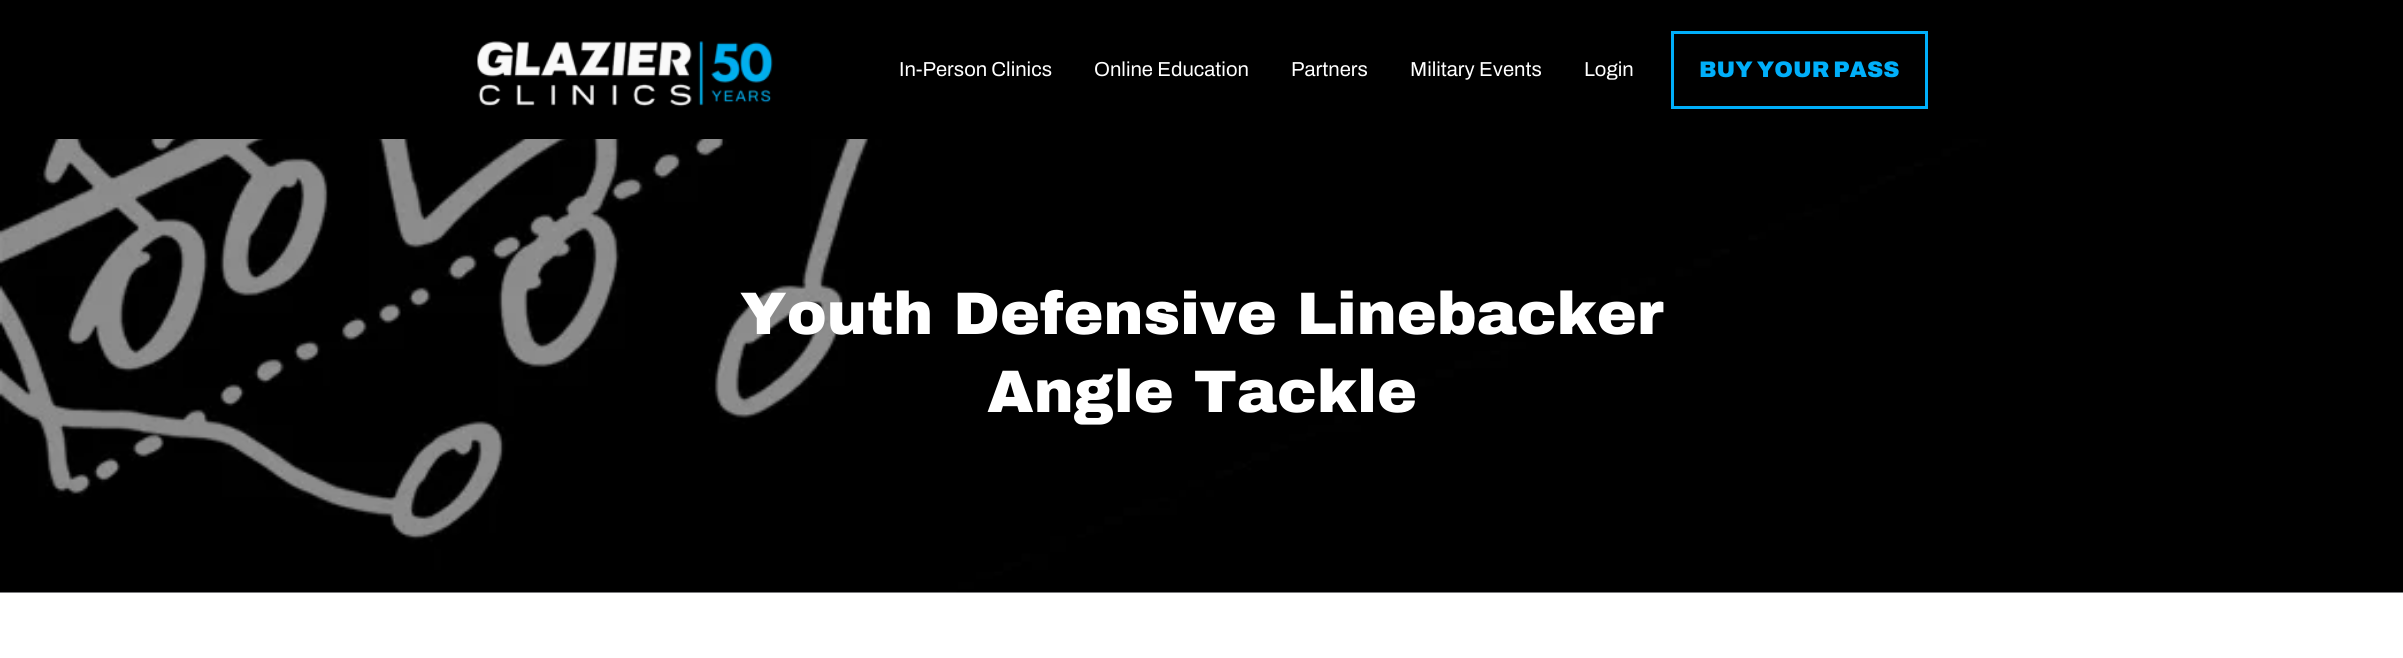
#include <cairo.h>
#include <math.h>
#include <stddef.h>


static void picture(cairo_t *cr, const char *path, double x, double y, double w, double h) {
    cairo_surface_t *image = cairo_image_surface_create_from_png(path);
    cairo_save(cr);
    cairo_set_source_surface(cr, image, x, y);
    cairo_rectangle(cr, x, y, w, h);
    cairo_fill(cr);
    cairo_restore(cr);
    cairo_surface_destroy(image);
}

int main(void) {
    cairo_surface_t *surface = cairo_image_surface_create(CAIRO_FORMAT_RGB24, 2403, 658);
    cairo_t *cr = cairo_create(surface);
    cairo_font_options_t *options = cairo_font_options_create();
    cairo_font_options_set_hint_metrics(options, CAIRO_HINT_METRICS_OFF);
    cairo_font_options_set_hint_style(options, CAIRO_HINT_STYLE_NONE);
    cairo_set_font_options(cr, options);
    cairo_set_miter_limit(cr, 4);
    cairo_set_source_rgb(cr, 1, 1, 1);
    cairo_paint(cr);
    cairo_set_source_rgb(cr, 0, 0, 0);
    cairo_rectangle(cr, 0, 0, 2403, 139);
    cairo_fill(cr);
    picture(cr, "img1.png", 477, 41, 296, 66);
    cairo_select_font_face(cr, "Archivo", CAIRO_FONT_SLANT_NORMAL, CAIRO_FONT_WEIGHT_NORMAL);
    cairo_set_font_size(cr, 20.25);
    cairo_set_source_rgb(cr, 1, 1, 1);
    cairo_move_to(cr, 899, 76);
    cairo_show_text(cr, "In-Person Clinics");
    cairo_move_to(cr, 1094, 76);
    cairo_show_text(cr, "Online Education");
    cairo_move_to(cr, 1291, 76);
    cairo_show_text(cr, "Partners");
    cairo_move_to(cr, 1410, 76);
    cairo_show_text(cr, "Military Events");
    cairo_move_to(cr, 1584, 76);
    cairo_show_text(cr, "Login");
    cairo_rectangle(cr, 1672.5, 32.5, 254, 75);
    cairo_set_source_rgb(cr, 0, 0.686, 0.98);
    cairo_set_line_width(cr, 3);
    cairo_stroke(cr);
    cairo_select_font_face(cr, "Archivo Black", CAIRO_FONT_SLANT_NORMAL, CAIRO_FONT_WEIGHT_NORMAL);
    cairo_set_font_size(cr, 22.5);
    cairo_move_to(cr, 1699, 77);
    cairo_show_text(cr, "BUY YOUR PASS");
    cairo_set_source_rgb(cr, 0.973, 0.98, 0.988);
    cairo_rectangle(cr, 0, 592, 2403, 1);
    cairo_fill(cr);
    picture(cr, "img2.png", 0, 139, 2403, 454);
    cairo_select_font_face(cr, "Archivo Black Black", CAIRO_FONT_SLANT_NORMAL, CAIRO_FONT_WEIGHT_NORMAL);
    cairo_set_font_size(cr, 60);
    cairo_set_source_rgb(cr, 1, 1, 1);
    cairo_move_to(cr, 740, 334);
    cairo_show_text(cr, "Youth Defensive Linebacker");
    cairo_move_to(cr, 987, 412);
    cairo_show_text(cr, "Angle Tackle");
    cairo_surface_write_to_png(surface, "page.png");
    cairo_font_options_destroy(options);
    cairo_destroy(cr);
    cairo_surface_destroy(surface);
    return 0;
}
